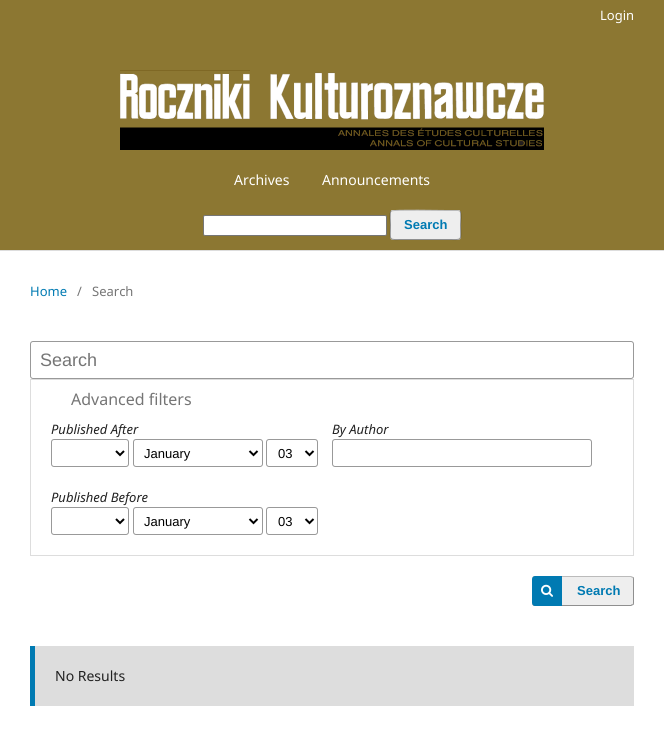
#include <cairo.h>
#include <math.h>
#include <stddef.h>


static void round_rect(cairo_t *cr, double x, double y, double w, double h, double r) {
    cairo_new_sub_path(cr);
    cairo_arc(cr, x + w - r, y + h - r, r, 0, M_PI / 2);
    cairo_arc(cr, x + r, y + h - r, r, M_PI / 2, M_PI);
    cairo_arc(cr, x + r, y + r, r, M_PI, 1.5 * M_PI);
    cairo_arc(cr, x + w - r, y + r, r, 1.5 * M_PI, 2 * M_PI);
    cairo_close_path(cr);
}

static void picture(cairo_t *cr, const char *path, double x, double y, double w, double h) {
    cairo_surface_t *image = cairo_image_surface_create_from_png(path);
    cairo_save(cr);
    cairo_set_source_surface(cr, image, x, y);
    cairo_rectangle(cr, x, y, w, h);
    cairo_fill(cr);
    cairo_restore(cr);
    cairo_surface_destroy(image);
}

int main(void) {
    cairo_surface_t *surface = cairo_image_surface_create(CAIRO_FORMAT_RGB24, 664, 744);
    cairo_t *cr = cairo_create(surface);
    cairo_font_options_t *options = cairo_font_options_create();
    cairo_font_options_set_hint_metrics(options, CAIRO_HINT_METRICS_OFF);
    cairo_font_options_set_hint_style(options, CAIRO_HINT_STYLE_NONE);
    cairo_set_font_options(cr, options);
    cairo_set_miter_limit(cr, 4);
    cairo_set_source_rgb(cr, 1, 1, 1);
    cairo_paint(cr);
    cairo_set_source_rgb(cr, 0.549, 0.467, 0.196);
    cairo_rectangle(cr, 0, 0, 664, 250);
    cairo_fill(cr);
    cairo_set_source_rgb(cr, 0.867, 0.867, 0.867);
    cairo_rectangle(cr, 0, 250, 664, 1);
    cairo_fill(cr);
    cairo_select_font_face(cr, "Noto Sans", CAIRO_FONT_SLANT_NORMAL, CAIRO_FONT_WEIGHT_NORMAL);
    cairo_set_font_size(cr, 13);
    cairo_set_source_rgb(cr, 1, 1, 1);
    cairo_move_to(cr, 600, 20);
    cairo_show_text(cr, "Login");
    picture(cr, "img1.png", 120, 70, 424, 80);
    cairo_set_font_size(cr, 14);
    cairo_move_to(cr, 234, 185);
    cairo_show_text(cr, "Archives");
    cairo_move_to(cr, 322, 185);
    cairo_show_text(cr, "Announcements");
    round_rect(cr, 203.5, 215.5, 183, 20, 1.5);
    cairo_fill_preserve(cr);
    cairo_set_source_rgb(cr, 0.463, 0.463, 0.463);
    cairo_set_line_width(cr, 1);
    cairo_stroke(cr);
    cairo_set_source_rgb(cr, 0.933, 0.933, 0.933);
    round_rect(cr, 390, 210, 71, 30, 3);
    cairo_fill(cr);
    cairo_new_path(cr);
    cairo_move_to(cr, 391, 211);
    cairo_line_to(cr, 391.5, 211);
    cairo_curve_to(cr, 393.5, 209.5, 441, 210.5, 447, 210.5);
    cairo_line_to(cr, 458, 210.5);
    cairo_line_to(cr, 460, 211);
    cairo_set_source_rgb(cr, 0.733, 0.733, 0.733);
    cairo_stroke(cr);
    cairo_new_path(cr);
    cairo_move_to(cr, 460, 211);
    cairo_curve_to(cr, 461.5, 213, 460.5, 222.5, 460.5, 225);
    cairo_curve_to(cr, 460.5, 241.5, 463.5, 239.5, 447, 239.5);
    cairo_line_to(cr, 404, 239.5);
    cairo_curve_to(cr, 387.5, 239.5, 390.5, 241.5, 390.5, 225);
    cairo_curve_to(cr, 390.5, 222.5, 389.5, 213, 391, 211);
    cairo_set_source_rgba(cr, 0, 0, 0, 0.4);
    cairo_stroke(cr);
    cairo_select_font_face(cr, "Liberation Sans", CAIRO_FONT_SLANT_NORMAL, CAIRO_FONT_WEIGHT_BOLD);
    cairo_set_font_size(cr, 13);
    cairo_set_source_rgb(cr, 0, 0.478, 0.698);
    cairo_move_to(cr, 404, 229);
    cairo_show_text(cr, "Search");
    cairo_select_font_face(cr, "Noto Sans", CAIRO_FONT_SLANT_NORMAL, CAIRO_FONT_WEIGHT_NORMAL);
    cairo_move_to(cr, 30, 296);
    cairo_show_text(cr, "Home");
    cairo_set_source_rgb(cr, 0.459, 0.459, 0.459);
    cairo_move_to(cr, 77, 296);
    cairo_show_text(cr, "/");
    cairo_move_to(cr, 92, 296);
    cairo_show_text(cr, "Search");
    round_rect(cr, 30.5, 341.5, 603, 37, 2.5);
    cairo_set_source_rgb(cr, 0.6, 0.6, 0.6);
    cairo_stroke(cr);
    cairo_select_font_face(cr, "Liberation Sans", CAIRO_FONT_SLANT_NORMAL, CAIRO_FONT_WEIGHT_NORMAL);
    cairo_set_font_size(cr, 18);
    cairo_set_source_rgb(cr, 0.459, 0.459, 0.459);
    cairo_move_to(cr, 40, 366);
    cairo_show_text(cr, "Search");
    cairo_rectangle(cr, 30.5, 379.5, 603, 176);
    cairo_set_source_rgb(cr, 0.867, 0.867, 0.867);
    cairo_stroke(cr);
    cairo_select_font_face(cr, "Noto Sans", CAIRO_FONT_SLANT_NORMAL, CAIRO_FONT_WEIGHT_NORMAL);
    cairo_set_font_size(cr, 16);
    cairo_set_source_rgb(cr, 0.459, 0.459, 0.459);
    cairo_move_to(cr, 71, 405);
    cairo_show_text(cr, "Advanced filters");
    cairo_select_font_face(cr, "Noto Sans", CAIRO_FONT_SLANT_ITALIC, CAIRO_FONT_WEIGHT_NORMAL);
    cairo_set_font_size(cr, 13);
    cairo_set_source_rgb(cr, 0.129, 0.129, 0.129);
    cairo_move_to(cr, 51, 434);
    cairo_show_text(cr, "Published After");
    round_rect(cr, 51.5, 439.5, 77, 27, 2.5);
    cairo_set_source_rgb(cr, 0.6, 0.6, 0.6);
    cairo_stroke(cr);
    cairo_new_path(cr);
    cairo_move_to(cr, 116, 451);
    cairo_line_to(cr, 120, 455);
    cairo_line_to(cr, 124, 451);
    cairo_set_source_rgb(cr, 0, 0, 0);
    cairo_set_line_width(cr, 2);
    cairo_stroke(cr);
    round_rect(cr, 133.5, 439.5, 129, 27, 2.5);
    cairo_set_source_rgb(cr, 0.6, 0.6, 0.6);
    cairo_set_line_width(cr, 1);
    cairo_stroke(cr);
    cairo_new_path(cr);
    cairo_move_to(cr, 249.5, 451);
    cairo_line_to(cr, 253.5, 455);
    cairo_line_to(cr, 257.5, 451);
    cairo_set_source_rgb(cr, 0, 0, 0);
    cairo_set_line_width(cr, 2);
    cairo_stroke(cr);
    cairo_select_font_face(cr, "Liberation Sans", CAIRO_FONT_SLANT_NORMAL, CAIRO_FONT_WEIGHT_NORMAL);
    cairo_move_to(cr, 144, 458);
    cairo_show_text(cr, "January");
    round_rect(cr, 266.5, 439.5, 51, 27, 2.5);
    cairo_set_source_rgb(cr, 0.6, 0.6, 0.6);
    cairo_set_line_width(cr, 1);
    cairo_stroke(cr);
    cairo_new_path(cr);
    cairo_move_to(cr, 305.5, 451);
    cairo_line_to(cr, 309.5, 455);
    cairo_line_to(cr, 313.5, 451);
    cairo_set_source_rgb(cr, 0, 0, 0);
    cairo_set_line_width(cr, 2);
    cairo_stroke(cr);
    cairo_move_to(cr, 278, 458);
    cairo_show_text(cr, "03");
    cairo_select_font_face(cr, "Noto Sans", CAIRO_FONT_SLANT_ITALIC, CAIRO_FONT_WEIGHT_NORMAL);
    cairo_set_source_rgb(cr, 0.129, 0.129, 0.129);
    cairo_move_to(cr, 51, 502);
    cairo_show_text(cr, "Published Before");
    round_rect(cr, 51.5, 507.5, 77, 27, 2.5);
    cairo_set_source_rgb(cr, 0.6, 0.6, 0.6);
    cairo_set_line_width(cr, 1);
    cairo_stroke(cr);
    cairo_new_path(cr);
    cairo_move_to(cr, 116, 519);
    cairo_line_to(cr, 120, 523);
    cairo_line_to(cr, 124, 519);
    cairo_set_source_rgb(cr, 0, 0, 0);
    cairo_set_line_width(cr, 2);
    cairo_stroke(cr);
    round_rect(cr, 133.5, 507.5, 129, 27, 2.5);
    cairo_set_source_rgb(cr, 0.6, 0.6, 0.6);
    cairo_set_line_width(cr, 1);
    cairo_stroke(cr);
    cairo_new_path(cr);
    cairo_move_to(cr, 249.5, 519);
    cairo_line_to(cr, 253.5, 523);
    cairo_line_to(cr, 257.5, 519);
    cairo_set_source_rgb(cr, 0, 0, 0);
    cairo_set_line_width(cr, 2);
    cairo_stroke(cr);
    cairo_select_font_face(cr, "Liberation Sans", CAIRO_FONT_SLANT_NORMAL, CAIRO_FONT_WEIGHT_NORMAL);
    cairo_move_to(cr, 144, 526);
    cairo_show_text(cr, "January");
    round_rect(cr, 266.5, 507.5, 51, 27, 2.5);
    cairo_set_source_rgb(cr, 0.6, 0.6, 0.6);
    cairo_set_line_width(cr, 1);
    cairo_stroke(cr);
    cairo_new_path(cr);
    cairo_move_to(cr, 305.5, 519);
    cairo_line_to(cr, 309.5, 523);
    cairo_line_to(cr, 313.5, 519);
    cairo_set_source_rgb(cr, 0, 0, 0);
    cairo_set_line_width(cr, 2);
    cairo_stroke(cr);
    cairo_move_to(cr, 278, 526);
    cairo_show_text(cr, "03");
    cairo_select_font_face(cr, "Noto Sans", CAIRO_FONT_SLANT_ITALIC, CAIRO_FONT_WEIGHT_NORMAL);
    cairo_set_source_rgb(cr, 0.129, 0.129, 0.129);
    cairo_move_to(cr, 332, 434);
    cairo_show_text(cr, "By Author");
    round_rect(cr, 332.5, 439.5, 259, 27, 2.5);
    cairo_set_source_rgb(cr, 0.6, 0.6, 0.6);
    cairo_set_line_width(cr, 1);
    cairo_stroke(cr);
    cairo_set_source_rgb(cr, 0.933, 0.933, 0.933);
    round_rect(cr, 532, 576, 102, 30, 3);
    cairo_fill(cr);
    cairo_set_source_rgb(cr, 0.733, 0.733, 0.733);
    cairo_new_path(cr);
    cairo_move_to(cr, 535, 576);
    cairo_curve_to(cr, 533, 576, 532, 577, 532, 579);
    cairo_curve_to(cr, 532, 578, 533, 577, 535, 577);
    cairo_line_to(cr, 631, 577);
    cairo_line_to(cr, 632, 578);
    cairo_line_to(cr, 633, 577);
    cairo_line_to(cr, 631, 576);
    cairo_close_path(cr);
    cairo_fill(cr);
    cairo_set_source_rgba(cr, 0, 0, 0, 0.4);
    cairo_new_path(cr);
    cairo_move_to(cr, 632.5, 604.5);
    cairo_curve_to(cr, 633, 604, 633, 603.5, 633, 603);
    cairo_line_to(cr, 633, 579);
    cairo_curve_to(cr, 633, 578.5, 633, 578, 632.5, 577.5);
    cairo_line_to(cr, 633, 577);
    cairo_curve_to(cr, 634, 577, 634, 578, 634, 579);
    cairo_line_to(cr, 634, 603);
    cairo_curve_to(cr, 634, 604, 634, 605, 633, 605);
    cairo_close_path(cr);
    cairo_fill(cr);
    cairo_new_path(cr);
    cairo_move_to(cr, 535, 606);
    cairo_line_to(cr, 631, 606);
    cairo_line_to(cr, 633, 605);
    cairo_line_to(cr, 632, 604);
    cairo_line_to(cr, 631, 605);
    cairo_line_to(cr, 535, 605);
    cairo_curve_to(cr, 533, 605, 532, 604, 532, 603);
    cairo_curve_to(cr, 532, 605, 533, 606, 535, 606);
    cairo_close_path(cr);
    cairo_fill(cr);
    cairo_set_source_rgb(cr, 0, 0.478, 0.698);
    cairo_new_path(cr);
    cairo_move_to(cr, 535, 576);
    cairo_line_to(cr, 562, 576);
    cairo_line_to(cr, 562, 606);
    cairo_line_to(cr, 535, 606);
    cairo_curve_to(cr, 533.5, 606, 532, 604.5, 532, 603);
    cairo_line_to(cr, 532, 579);
    cairo_curve_to(cr, 532, 577.5, 533.5, 576, 535, 576);
    cairo_close_path(cr);
    cairo_fill(cr);
    picture(cr, "img2.png", 541, 584, 12, 13);
    cairo_select_font_face(cr, "Liberation Sans", CAIRO_FONT_SLANT_NORMAL, CAIRO_FONT_WEIGHT_BOLD);
    cairo_move_to(cr, 577, 595);
    cairo_show_text(cr, "Search");
    cairo_set_source_rgb(cr, 0.867, 0.867, 0.867);
    cairo_rectangle(cr, 35, 646, 599, 60);
    cairo_fill(cr);
    cairo_set_source_rgb(cr, 0, 0.478, 0.698);
    cairo_rectangle(cr, 30, 646, 5, 60);
    cairo_fill(cr);
    cairo_select_font_face(cr, "Noto Sans", CAIRO_FONT_SLANT_NORMAL, CAIRO_FONT_WEIGHT_NORMAL);
    cairo_set_font_size(cr, 14);
    cairo_set_source_rgb(cr, 0.129, 0.129, 0.129);
    cairo_move_to(cr, 55, 681);
    cairo_show_text(cr, "No Results");
    cairo_surface_write_to_png(surface, "page.png");
    cairo_font_options_destroy(options);
    cairo_destroy(cr);
    cairo_surface_destroy(surface);
    return 0;
}
